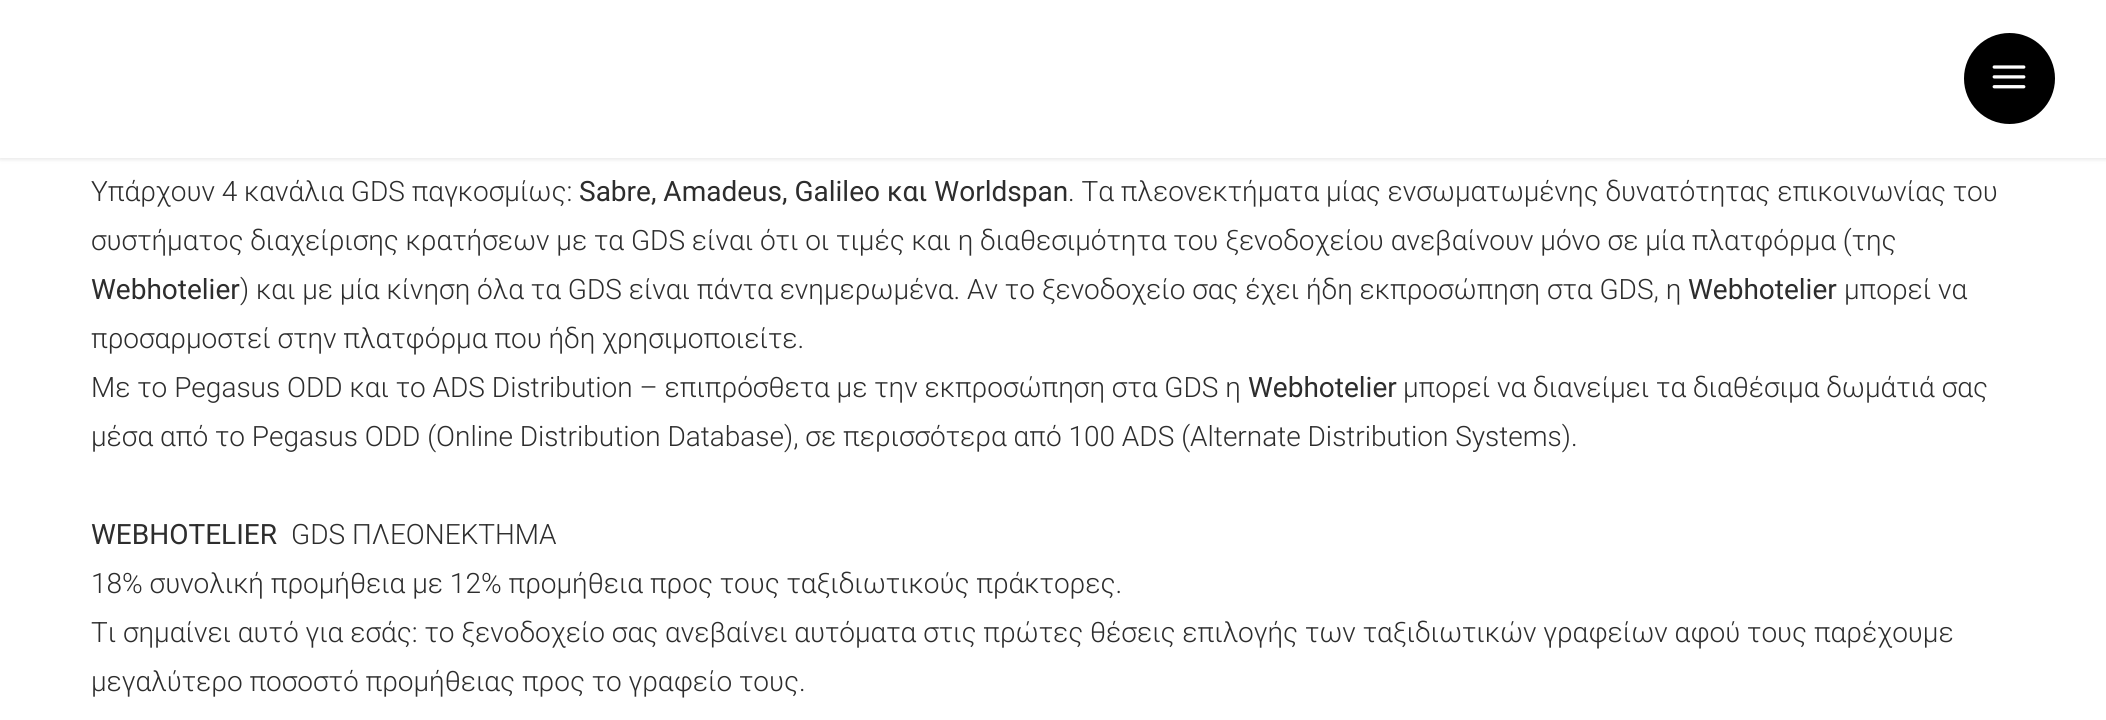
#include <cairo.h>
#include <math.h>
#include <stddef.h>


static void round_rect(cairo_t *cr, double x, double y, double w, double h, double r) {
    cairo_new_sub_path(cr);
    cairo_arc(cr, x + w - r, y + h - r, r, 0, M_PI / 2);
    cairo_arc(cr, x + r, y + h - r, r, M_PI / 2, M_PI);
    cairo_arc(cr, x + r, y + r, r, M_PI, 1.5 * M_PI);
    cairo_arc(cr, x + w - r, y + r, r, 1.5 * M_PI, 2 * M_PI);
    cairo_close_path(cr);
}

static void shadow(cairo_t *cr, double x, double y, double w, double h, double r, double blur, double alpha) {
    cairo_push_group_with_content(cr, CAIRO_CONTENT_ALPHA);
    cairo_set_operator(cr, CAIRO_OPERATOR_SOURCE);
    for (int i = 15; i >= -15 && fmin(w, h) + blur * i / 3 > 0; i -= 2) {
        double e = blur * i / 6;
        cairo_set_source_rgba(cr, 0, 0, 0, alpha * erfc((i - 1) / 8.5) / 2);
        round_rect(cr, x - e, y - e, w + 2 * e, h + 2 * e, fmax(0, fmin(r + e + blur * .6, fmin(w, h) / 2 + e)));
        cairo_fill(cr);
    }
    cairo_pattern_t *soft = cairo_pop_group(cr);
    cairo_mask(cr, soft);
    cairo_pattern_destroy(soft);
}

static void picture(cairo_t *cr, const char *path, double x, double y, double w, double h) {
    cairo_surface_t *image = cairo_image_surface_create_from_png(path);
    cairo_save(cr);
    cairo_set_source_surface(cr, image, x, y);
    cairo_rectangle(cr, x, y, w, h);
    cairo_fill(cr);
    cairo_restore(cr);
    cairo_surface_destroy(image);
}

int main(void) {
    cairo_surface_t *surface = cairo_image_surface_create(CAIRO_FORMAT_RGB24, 2106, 720);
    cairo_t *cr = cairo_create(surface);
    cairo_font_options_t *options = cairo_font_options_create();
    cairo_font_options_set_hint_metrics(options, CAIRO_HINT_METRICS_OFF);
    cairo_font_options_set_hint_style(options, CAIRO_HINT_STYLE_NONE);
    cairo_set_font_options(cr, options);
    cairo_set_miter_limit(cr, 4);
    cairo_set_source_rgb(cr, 1, 1, 1);
    cairo_paint(cr);
    cairo_set_source_rgb(cr, 0, 0, 0);
    shadow(cr, 0, 2, 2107, 157, 0, 2.5, 0.11);
    cairo_set_source_rgb(cr, 1, 1, 1);
    cairo_rectangle(cr, 0, 0, 2106, 158);
    cairo_fill(cr);
    cairo_set_source_rgb(cr, 0, 0, 0);
    cairo_arc(cr, 2009.5, 78.5, 44.5, 0, 2 * M_PI);
    cairo_fill_preserve(cr);
    cairo_stroke(cr);
    picture(cr, "img1.png", 1992, 65, 34, 24);
    cairo_select_font_face(cr, "Roboto Light", CAIRO_FONT_SLANT_NORMAL, CAIRO_FONT_WEIGHT_NORMAL);
    cairo_set_font_size(cr, 28);
    cairo_set_source_rgb(cr, 0.176, 0.176, 0.176);
    cairo_move_to(cr, 91, 201);
    cairo_show_text(cr, "Υπάρχουν 4 κανάλια GDS παγκοσμίως:");
    cairo_select_font_face(cr, "Roboto", CAIRO_FONT_SLANT_NORMAL, CAIRO_FONT_WEIGHT_NORMAL);
    cairo_move_to(cr, 579, 201);
    cairo_show_text(cr, "Sabre, Amadeus, Galileo και Worldspan");
    cairo_select_font_face(cr, "Roboto Light", CAIRO_FONT_SLANT_NORMAL, CAIRO_FONT_WEIGHT_NORMAL);
    cairo_move_to(cr, 1068, 201);
    cairo_show_text(cr, ". Τα πλεονεκτήματα μίας ενσωματωμένης δυνατότητας επικοινωνίας του");
    cairo_move_to(cr, 91, 250);
    cairo_show_text(cr, "συστήματος διαχείρισης κρατήσεων με τα GDS είναι ότι οι τιμές και η διαθεσιμότητα του ξενοδοχείου ανεβαίνουν μόνο σε μία πλατφόρμα (της");
    cairo_select_font_face(cr, "Roboto", CAIRO_FONT_SLANT_NORMAL, CAIRO_FONT_WEIGHT_NORMAL);
    cairo_move_to(cr, 91, 299);
    cairo_show_text(cr, "Webhotelier");
    cairo_select_font_face(cr, "Roboto Light", CAIRO_FONT_SLANT_NORMAL, CAIRO_FONT_WEIGHT_NORMAL);
    cairo_move_to(cr, 240, 299);
    cairo_show_text(cr, ") και με μία κίνηση όλα τα GDS είναι πάντα ενημερωμένα. Αν το ξενοδοχείο σας έχει ήδη εκπροσώπηση στα GDS, η");
    cairo_select_font_face(cr, "Roboto", CAIRO_FONT_SLANT_NORMAL, CAIRO_FONT_WEIGHT_NORMAL);
    cairo_move_to(cr, 1688, 299);
    cairo_show_text(cr, "Webhotelier");
    cairo_select_font_face(cr, "Roboto Light", CAIRO_FONT_SLANT_NORMAL, CAIRO_FONT_WEIGHT_NORMAL);
    cairo_move_to(cr, 1844, 299);
    cairo_show_text(cr, "μπορεί να");
    cairo_move_to(cr, 91, 348);
    cairo_show_text(cr, "προσαρμοστεί στην πλατφόρμα που ήδη χρησιμοποιείτε.");
    cairo_move_to(cr, 91, 397);
    cairo_show_text(cr, "Με το Pegasus ODD και το ADS Distribution – επιπρόσθετα με την εκπροσώπηση στα GDS η");
    cairo_select_font_face(cr, "Roboto", CAIRO_FONT_SLANT_NORMAL, CAIRO_FONT_WEIGHT_NORMAL);
    cairo_move_to(cr, 1248, 397);
    cairo_show_text(cr, "Webhotelier");
    cairo_select_font_face(cr, "Roboto Light", CAIRO_FONT_SLANT_NORMAL, CAIRO_FONT_WEIGHT_NORMAL);
    cairo_move_to(cr, 1403, 397);
    cairo_show_text(cr, "μπορεί να διανείμει τα διαθέσιμα δωμάτιά σας");
    cairo_move_to(cr, 91, 446);
    cairo_show_text(cr, "μέσα από το Pegasus ODD (Online Distribution Database), σε περισσότερα από 100 ADS (Alternate Distribution Systems).");
    cairo_select_font_face(cr, "Roboto", CAIRO_FONT_SLANT_NORMAL, CAIRO_FONT_WEIGHT_NORMAL);
    cairo_move_to(cr, 91, 544);
    cairo_show_text(cr, "WEBHOTELIER");
    cairo_select_font_face(cr, "Roboto Light", CAIRO_FONT_SLANT_NORMAL, CAIRO_FONT_WEIGHT_NORMAL);
    cairo_move_to(cr, 291, 544);
    cairo_show_text(cr, "GDS ΠΛΕΟΝΕΚΤΗΜΑ");
    cairo_move_to(cr, 91, 593);
    cairo_show_text(cr, "18% συνολική προμήθεια με 12% προμήθεια προς τους ταξιδιωτικούς πράκτορες.");
    cairo_move_to(cr, 91, 642);
    cairo_show_text(cr, "Τι σημαίνει αυτό για εσάς: το ξενοδοχείο σας ανεβαίνει αυτόματα στις πρώτες θέσεις επιλογής των ταξιδιωτικών γραφείων αφού τους παρέχουμε");
    cairo_move_to(cr, 91, 691);
    cairo_show_text(cr, "μεγαλύτερο ποσοστό προμήθειας προς το γραφείο τους.");
    cairo_surface_write_to_png(surface, "page.png");
    cairo_font_options_destroy(options);
    cairo_destroy(cr);
    cairo_surface_destroy(surface);
    return 0;
}
